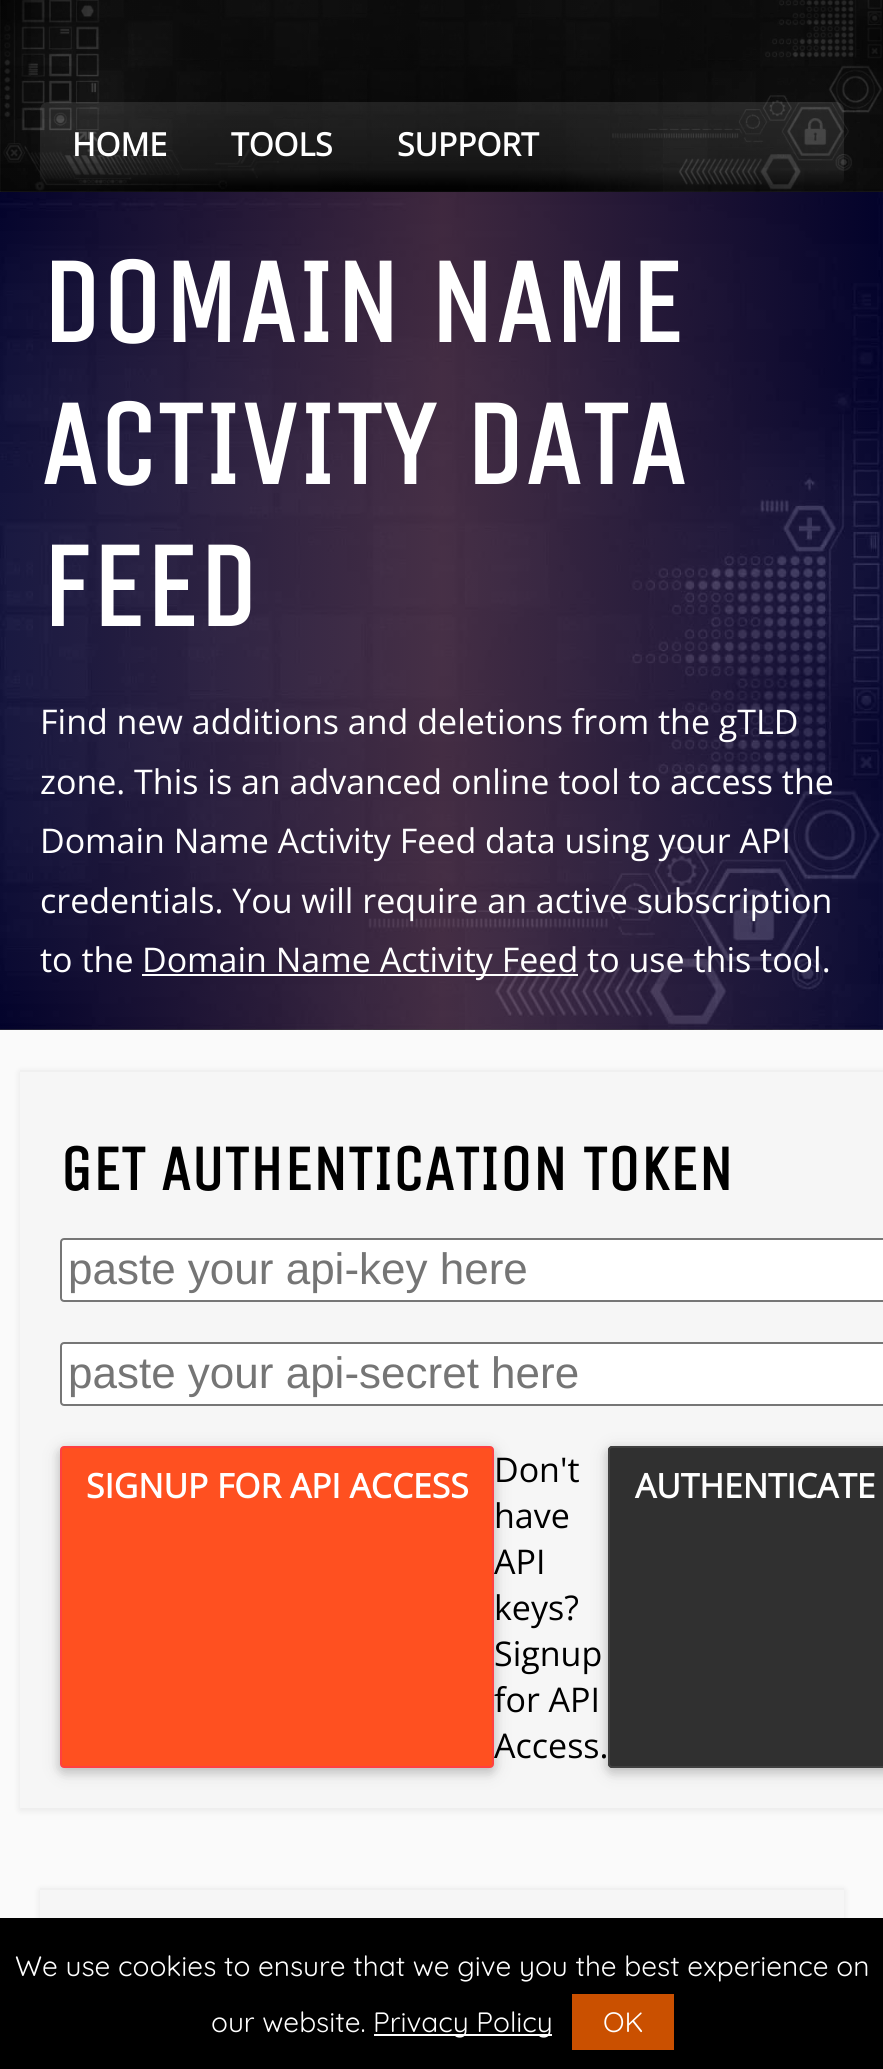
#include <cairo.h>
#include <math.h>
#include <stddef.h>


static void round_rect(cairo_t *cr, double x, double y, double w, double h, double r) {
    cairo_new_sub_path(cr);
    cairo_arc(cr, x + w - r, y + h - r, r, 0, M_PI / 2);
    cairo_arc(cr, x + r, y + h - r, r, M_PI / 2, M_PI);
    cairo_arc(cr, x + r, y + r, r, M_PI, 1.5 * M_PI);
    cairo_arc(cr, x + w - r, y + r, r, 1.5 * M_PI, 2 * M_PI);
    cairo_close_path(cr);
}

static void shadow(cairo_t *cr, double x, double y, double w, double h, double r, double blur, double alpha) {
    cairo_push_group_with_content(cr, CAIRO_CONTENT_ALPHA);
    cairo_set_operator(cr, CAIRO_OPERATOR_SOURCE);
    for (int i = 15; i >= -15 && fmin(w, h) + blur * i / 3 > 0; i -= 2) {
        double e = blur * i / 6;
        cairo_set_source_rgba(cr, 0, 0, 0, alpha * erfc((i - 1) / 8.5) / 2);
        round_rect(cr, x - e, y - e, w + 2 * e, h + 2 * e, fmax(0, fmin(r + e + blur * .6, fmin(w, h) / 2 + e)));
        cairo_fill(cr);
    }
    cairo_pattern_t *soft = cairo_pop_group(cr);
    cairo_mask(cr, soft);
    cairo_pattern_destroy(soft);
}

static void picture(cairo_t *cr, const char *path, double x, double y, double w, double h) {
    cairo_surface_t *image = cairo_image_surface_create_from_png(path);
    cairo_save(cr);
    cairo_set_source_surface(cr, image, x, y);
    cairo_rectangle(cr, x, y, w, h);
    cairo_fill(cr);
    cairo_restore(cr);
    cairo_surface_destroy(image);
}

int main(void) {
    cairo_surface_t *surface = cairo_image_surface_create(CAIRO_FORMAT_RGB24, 883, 2069);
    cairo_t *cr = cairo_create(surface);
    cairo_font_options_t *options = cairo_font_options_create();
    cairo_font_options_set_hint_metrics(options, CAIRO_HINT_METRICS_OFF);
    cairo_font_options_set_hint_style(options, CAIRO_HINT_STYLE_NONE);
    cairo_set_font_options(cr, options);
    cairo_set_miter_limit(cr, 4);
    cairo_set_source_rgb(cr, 0.98, 0.98, 0.98);
    cairo_paint(cr);
    picture(cr, "img1.png", 0, 0, 883, 192);
    cairo_select_font_face(cr, "Open Sans", CAIRO_FONT_SLANT_NORMAL, CAIRO_FONT_WEIGHT_BOLD);
    cairo_set_font_size(cr, 32);
    cairo_set_source_rgb(cr, 1, 1, 1);
    cairo_move_to(cr, 72, 156);
    cairo_show_text(cr, "HOME");
    cairo_move_to(cr, 231, 156);
    cairo_show_text(cr, "TOOLS");
    cairo_move_to(cr, 397, 156);
    cairo_show_text(cr, "SUPPORT");
    picture(cr, "img2.png", 0, 192, 883, 838);
    cairo_select_font_face(cr, "Unica One", CAIRO_FONT_SLANT_NORMAL, CAIRO_FONT_WEIGHT_BOLD);
    cairo_set_font_size(cr, 120);
    cairo_move_to(cr, 40, 342);
    cairo_show_text(cr, "DOMAIN NAME");
    cairo_move_to(cr, 40, 484);
    cairo_show_text(cr, "ACTIVITY DATA");
    cairo_move_to(cr, 40, 626);
    cairo_show_text(cr, "FEED");
    cairo_select_font_face(cr, "Open Sans", CAIRO_FONT_SLANT_NORMAL, CAIRO_FONT_WEIGHT_NORMAL);
    cairo_set_font_size(cr, 34);
    cairo_move_to(cr, 40, 734);
    cairo_show_text(cr, "Find new additions and deletions from the gTLD");
    cairo_move_to(cr, 40, 794);
    cairo_show_text(cr, "zone. This is an advanced online tool to access the");
    cairo_move_to(cr, 40, 853);
    cairo_show_text(cr, "Domain Name Activity Feed data using your API");
    cairo_move_to(cr, 40, 913);
    cairo_show_text(cr, "credentials. You will require an active subscription");
    cairo_move_to(cr, 40, 972);
    cairo_show_text(cr, "to the");
    cairo_rectangle(cr, 142, 974, 436, 2);
    cairo_fill(cr);
    cairo_move_to(cr, 142, 972);
    cairo_show_text(cr, "Domain Name Activity Feed to use this tool.");
    cairo_set_source_rgb(cr, 0, 0, 0);
    shadow(cr, 20, 1072, 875, 738, 0, 4, 0.08);
    cairo_set_source_rgb(cr, 0.961, 0.961, 0.961);
    cairo_rectangle(cr, 20, 1072, 863, 736);
    cairo_fill(cr);
    cairo_set_source_rgb(cr, 0.941, 0.941, 0.941);
    cairo_rectangle(cr, 20, 1070, 863, 2);
    cairo_fill(cr);
    cairo_select_font_face(cr, "Unica One", CAIRO_FONT_SLANT_NORMAL, CAIRO_FONT_WEIGHT_BOLD);
    cairo_set_font_size(cr, 64);
    cairo_set_source_rgb(cr, 0, 0, 0);
    cairo_move_to(cr, 60, 1190);
    cairo_show_text(cr, "GET AUTHENTICATION TOKEN");
    cairo_set_source_rgb(cr, 1, 1, 1);
    cairo_new_path(cr);
    cairo_move_to(cr, 64, 1238);
    cairo_line_to(cr, 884, 1238);
    cairo_line_to(cr, 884, 1302);
    cairo_line_to(cr, 64, 1302);
    cairo_curve_to(cr, 62, 1302, 60, 1300, 60, 1298);
    cairo_line_to(cr, 60, 1242);
    cairo_curve_to(cr, 60, 1240, 62, 1238, 64, 1238);
    cairo_close_path(cr);
    cairo_fill(cr);
    round_rect(cr, 61, 1239, 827, 62, 3);
    cairo_set_source_rgb(cr, 0.463, 0.463, 0.463);
    cairo_stroke(cr);
    cairo_select_font_face(cr, "Liberation Sans", CAIRO_FONT_SLANT_NORMAL, CAIRO_FONT_WEIGHT_NORMAL);
    cairo_set_font_size(cr, 44);
    cairo_set_source_rgb(cr, 0.459, 0.459, 0.459);
    cairo_move_to(cr, 68, 1284);
    cairo_show_text(cr, "paste your api-key here");
    cairo_set_source_rgb(cr, 1, 1, 1);
    cairo_new_path(cr);
    cairo_move_to(cr, 64, 1342);
    cairo_line_to(cr, 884, 1342);
    cairo_line_to(cr, 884, 1406);
    cairo_line_to(cr, 64, 1406);
    cairo_curve_to(cr, 62, 1406, 60, 1404, 60, 1402);
    cairo_line_to(cr, 60, 1346);
    cairo_curve_to(cr, 60, 1344, 62, 1342, 64, 1342);
    cairo_close_path(cr);
    cairo_fill(cr);
    round_rect(cr, 61, 1343, 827, 62, 3);
    cairo_set_source_rgb(cr, 0.463, 0.463, 0.463);
    cairo_stroke(cr);
    cairo_set_source_rgb(cr, 0.459, 0.459, 0.459);
    cairo_move_to(cr, 68, 1388);
    cairo_show_text(cr, "paste your api-secret here");
    cairo_set_source_rgb(cr, 0, 0, 0);
    shadow(cr, 60, 1450, 434, 322, 4, 10, 0.12);
    shadow(cr, 60, 1450, 434, 322, 4, 5, 0.16);
    cairo_set_source_rgb(cr, 1, 0.314, 0.125);
    round_rect(cr, 61, 1447, 432, 320, 3);
    cairo_fill_preserve(cr);
    cairo_set_source_rgb(cr, 1, 0.251, 0.251);
    cairo_stroke(cr);
    cairo_select_font_face(cr, "Open Sans", CAIRO_FONT_SLANT_NORMAL, CAIRO_FONT_WEIGHT_BOLD);
    cairo_set_font_size(cr, 33.6);
    cairo_set_source_rgb(cr, 1, 1, 1);
    cairo_move_to(cr, 86, 1498);
    cairo_show_text(cr, "SIGNUP FOR API ACCESS");
    cairo_set_source_rgb(cr, 0, 0, 0);
    shadow(cr, 608, 1450, 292, 322, 4, 10, 0.12);
    cairo_select_font_face(cr, "Open Sans", CAIRO_FONT_SLANT_NORMAL, CAIRO_FONT_WEIGHT_NORMAL);
    cairo_set_font_size(cr, 34);
    cairo_set_source_rgb(cr, 0, 0, 0);
    cairo_move_to(cr, 494, 1482);
    cairo_show_text(cr, "Don't");
    cairo_move_to(cr, 494, 1528);
    cairo_show_text(cr, "have");
    cairo_move_to(cr, 494, 1574);
    cairo_show_text(cr, "API");
    cairo_move_to(cr, 494, 1620);
    cairo_show_text(cr, "keys?");
    cairo_set_source_rgb(cr, 0, 0, 0);
    shadow(cr, 608, 1450, 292, 322, 4, 5, 0.16);
    cairo_set_source_rgb(cr, 0, 0, 0);
    cairo_move_to(cr, 494, 1666);
    cairo_show_text(cr, "Signup");
    cairo_move_to(cr, 494, 1712);
    cairo_show_text(cr, "for API");
    cairo_move_to(cr, 494, 1758);
    cairo_show_text(cr, "Access.");
    cairo_set_source_rgb(cr, 0.188, 0.188, 0.188);
    cairo_new_path(cr);
    cairo_move_to(cr, 612, 1446);
    cairo_line_to(cr, 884, 1446);
    cairo_line_to(cr, 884, 1768);
    cairo_line_to(cr, 612, 1768);
    cairo_curve_to(cr, 610, 1768, 608, 1766, 608, 1764);
    cairo_line_to(cr, 608, 1450);
    cairo_curve_to(cr, 608, 1448, 610, 1446, 612, 1446);
    cairo_close_path(cr);
    cairo_fill(cr);
    round_rect(cr, 609, 1447, 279, 320, 3);
    cairo_set_source_rgb(cr, 0.251, 0.251, 0.251);
    cairo_stroke(cr);
    cairo_select_font_face(cr, "Open Sans", CAIRO_FONT_SLANT_NORMAL, CAIRO_FONT_WEIGHT_BOLD);
    cairo_set_font_size(cr, 33.6);
    cairo_set_source_rgb(cr, 1, 1, 1);
    cairo_move_to(cr, 635, 1498);
    cairo_show_text(cr, "AUTHENTICATE");
    cairo_set_source_rgb(cr, 0, 0, 0);
    shadow(cr, 40, 1890, 804, 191, 0, 4, 0.08);
    cairo_set_source_rgb(cr, 0.961, 0.961, 0.961);
    cairo_rectangle(cr, 40, 1890, 804, 28);
    cairo_fill(cr);
    cairo_set_source_rgb(cr, 0.941, 0.941, 0.941);
    cairo_rectangle(cr, 40, 1888, 804, 2);
    cairo_fill(cr);
    cairo_set_source_rgb(cr, 0, 0, 0);
    cairo_rectangle(cr, 0, 1918, 883, 151);
    cairo_fill(cr);
    cairo_select_font_face(cr, "Quicksand", CAIRO_FONT_SLANT_NORMAL, CAIRO_FONT_WEIGHT_NORMAL);
    cairo_set_font_size(cr, 28);
    cairo_set_source_rgb(cr, 1, 1, 1);
    cairo_move_to(cr, 15, 1976);
    cairo_show_text(cr, "We use cookies to ensure that we give you the best experience on");
    cairo_move_to(cr, 211, 2032);
    cairo_show_text(cr, "our website.");
    cairo_rectangle(cr, 374, 2034, 178, 2);
    cairo_fill(cr);
    cairo_move_to(cr, 373, 2032);
    cairo_show_text(cr, "Privacy Policy");
    cairo_set_source_rgb(cr, 0.792, 0.314, 0);
    cairo_rectangle(cr, 572, 1994, 102, 56);
    cairo_fill(cr);
    cairo_set_source_rgb(cr, 1, 1, 1);
    cairo_move_to(cr, 603, 2032);
    cairo_show_text(cr, "OK");
    cairo_surface_write_to_png(surface, "page.png");
    cairo_font_options_destroy(options);
    cairo_destroy(cr);
    cairo_surface_destroy(surface);
    return 0;
}
